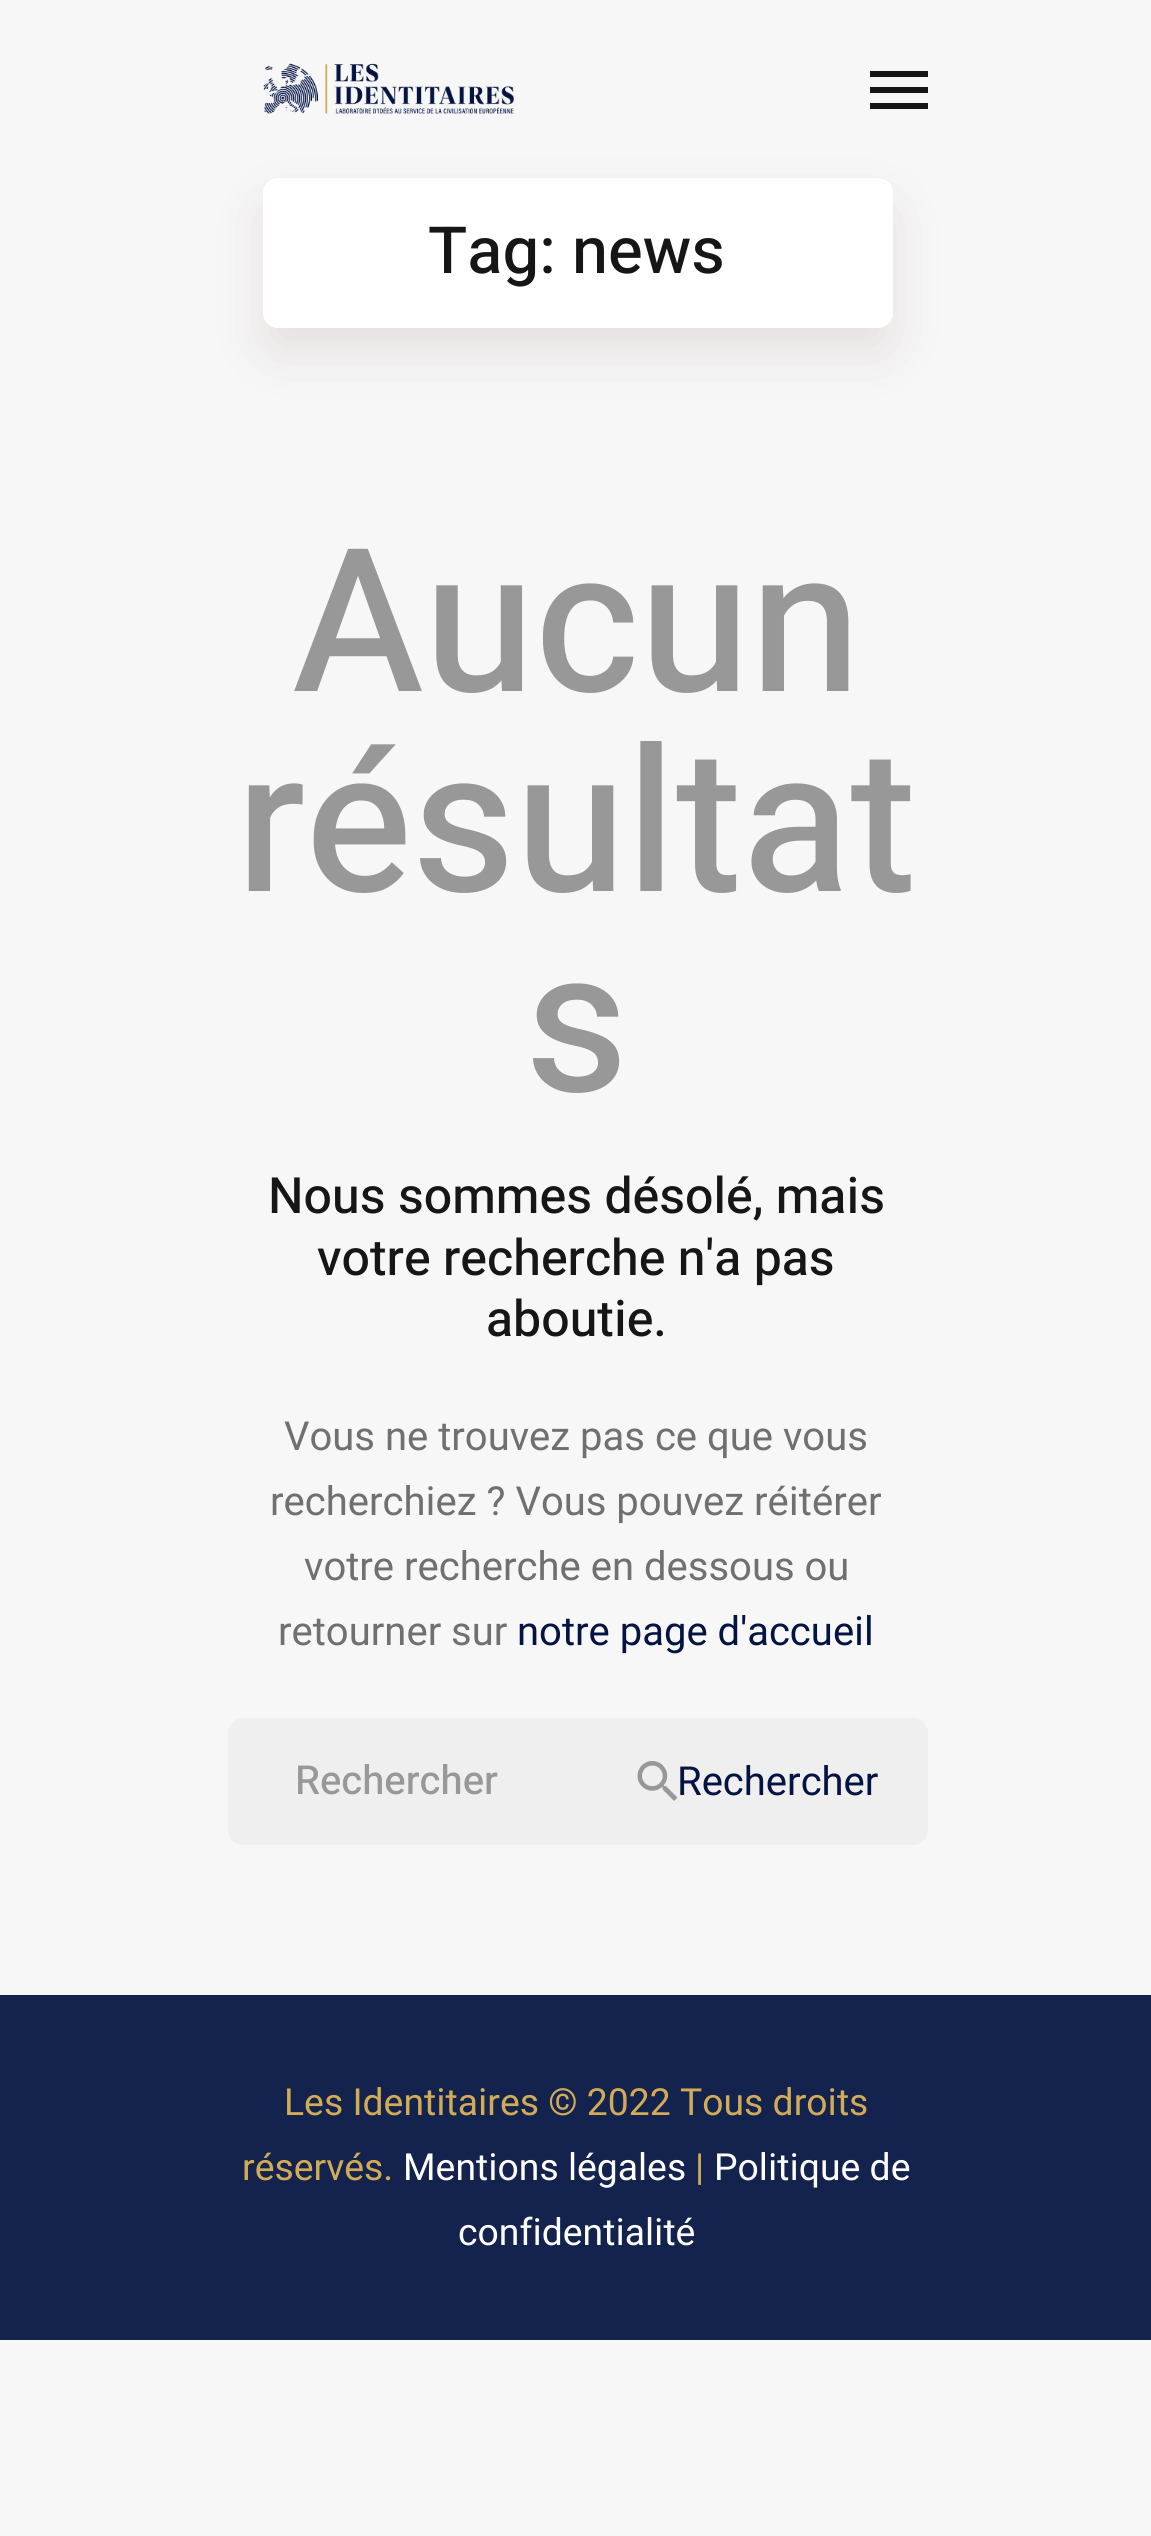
#include <cairo.h>
#include <math.h>
#include <stddef.h>


static void round_rect(cairo_t *cr, double x, double y, double w, double h, double r) {
    cairo_new_sub_path(cr);
    cairo_arc(cr, x + w - r, y + h - r, r, 0, M_PI / 2);
    cairo_arc(cr, x + r, y + h - r, r, M_PI / 2, M_PI);
    cairo_arc(cr, x + r, y + r, r, M_PI, 1.5 * M_PI);
    cairo_arc(cr, x + w - r, y + r, r, 1.5 * M_PI, 2 * M_PI);
    cairo_close_path(cr);
}

static void shadow(cairo_t *cr, double x, double y, double w, double h, double r, double blur, double alpha) {
    cairo_push_group_with_content(cr, CAIRO_CONTENT_ALPHA);
    cairo_set_operator(cr, CAIRO_OPERATOR_SOURCE);
    for (int i = 15; i >= -15 && fmin(w, h) + blur * i / 3 > 0; i -= 2) {
        double e = blur * i / 6;
        cairo_set_source_rgba(cr, 0, 0, 0, alpha * erfc((i - 1) / 8.5) / 2);
        round_rect(cr, x - e, y - e, w + 2 * e, h + 2 * e, fmax(0, fmin(r + e + blur * .6, fmin(w, h) / 2 + e)));
        cairo_fill(cr);
    }
    cairo_pattern_t *soft = cairo_pop_group(cr);
    cairo_mask(cr, soft);
    cairo_pattern_destroy(soft);
}

static void picture(cairo_t *cr, const char *path, double x, double y, double w, double h) {
    cairo_surface_t *image = cairo_image_surface_create_from_png(path);
    cairo_save(cr);
    cairo_set_source_surface(cr, image, x, y);
    cairo_rectangle(cr, x, y, w, h);
    cairo_fill(cr);
    cairo_restore(cr);
    cairo_surface_destroy(image);
}

int main(void) {
    cairo_surface_t *surface = cairo_image_surface_create(CAIRO_FORMAT_RGB24, 1151, 2536);
    cairo_t *cr = cairo_create(surface);
    cairo_font_options_t *options = cairo_font_options_create();
    cairo_font_options_set_hint_metrics(options, CAIRO_HINT_METRICS_OFF);
    cairo_font_options_set_hint_style(options, CAIRO_HINT_STYLE_NONE);
    cairo_set_font_options(cr, options);
    cairo_set_miter_limit(cr, 4);
    cairo_set_source_rgb(cr, 0.965, 0.965, 0.965);
    cairo_paint(cr);
    picture(cr, "img1.png", 263, 63, 251, 51);
    cairo_set_source_rgb(cr, 0.086, 0.086, 0.086);
    cairo_new_path(cr);
    cairo_move_to(cr, 870, 109);
    cairo_line_to(cr, 928, 109);
    cairo_line_to(cr, 928, 103);
    cairo_line_to(cr, 870, 103);
    cairo_close_path(cr);
    cairo_move_to(cr, 870, 93);
    cairo_line_to(cr, 928, 93);
    cairo_line_to(cr, 928, 87);
    cairo_line_to(cr, 870, 87);
    cairo_close_path(cr);
    cairo_move_to(cr, 870, 71);
    cairo_line_to(cr, 870, 77);
    cairo_line_to(cr, 928, 77);
    cairo_line_to(cr, 928, 71);
    cairo_close_path(cr);
    cairo_fill(cr);
    cairo_set_source_rgb(cr, 0.561, 0.396, 0.396);
    shadow(cr, 263, 203, 630, 150, 15, 25, 0.16);
    cairo_set_source_rgb(cr, 1, 1, 1);
    round_rect(cr, 263, 178, 630, 150, 15);
    cairo_fill(cr);
    cairo_select_font_face(cr, "Heebo Medium", CAIRO_FONT_SLANT_NORMAL, CAIRO_FONT_WEIGHT_NORMAL);
    cairo_set_font_size(cr, 65);
    cairo_set_source_rgb(cr, 0.086, 0.086, 0.086);
    cairo_move_to(cr, 428, 273);
    cairo_show_text(cr, "Tag: news");
    cairo_set_font_size(cr, 200);
    cairo_set_source_rgb(cr, 0.596, 0.596, 0.596);
    cairo_move_to(cr, 292, 691);
    cairo_show_text(cr, "Aucun");
    cairo_move_to(cr, 236, 891);
    cairo_show_text(cr, "résultat");
    cairo_move_to(cr, 525, 1091);
    cairo_show_text(cr, "s");
    cairo_set_font_size(cr, 50);
    cairo_set_source_rgb(cr, 0.086, 0.086, 0.086);
    cairo_move_to(cr, 268, 1213);
    cairo_show_text(cr, "Nous sommes désolé, mais");
    cairo_move_to(cr, 317, 1275);
    cairo_show_text(cr, "votre recherche n'a pas");
    cairo_move_to(cr, 486, 1336);
    cairo_show_text(cr, "aboutie.");
    cairo_select_font_face(cr, "Heebo", CAIRO_FONT_SLANT_NORMAL, CAIRO_FONT_WEIGHT_NORMAL);
    cairo_set_font_size(cr, 40);
    cairo_set_source_rgb(cr, 0.439, 0.439, 0.439);
    cairo_move_to(cr, 284, 1450);
    cairo_show_text(cr, "Vous ne trouvez pas ce que vous");
    cairo_move_to(cr, 270, 1515);
    cairo_show_text(cr, "recherchiez ? Vous pouvez réitérer");
    cairo_move_to(cr, 304, 1580);
    cairo_show_text(cr, "votre recherche en dessous ou");
    cairo_move_to(cr, 278, 1645);
    cairo_show_text(cr, "retourner sur");
    cairo_set_source_rgb(cr, 0.012, 0.075, 0.259);
    cairo_move_to(cr, 517, 1645);
    cairo_show_text(cr, "notre page d'accueil");
    cairo_set_source_rgb(cr, 0.937, 0.937, 0.937);
    round_rect(cr, 228, 1718, 700, 127, 15);
    cairo_fill(cr);
    cairo_select_font_face(cr, "Heebo Medium", CAIRO_FONT_SLANT_NORMAL, CAIRO_FONT_WEIGHT_NORMAL);
    cairo_set_source_rgb(cr, 0.596, 0.596, 0.596);
    cairo_move_to(cr, 295, 1794);
    cairo_show_text(cr, "Rechercher");
    picture(cr, "img2.png", 637, 1761, 41, 40);
    cairo_select_font_face(cr, "Heebo", CAIRO_FONT_SLANT_NORMAL, CAIRO_FONT_WEIGHT_NORMAL);
    cairo_set_source_rgb(cr, 0.012, 0.075, 0.259);
    cairo_move_to(cr, 677, 1795);
    cairo_show_text(cr, "Rechercher");
    cairo_set_source_rgb(cr, 0.082, 0.137, 0.302);
    cairo_rectangle(cr, 0, 1995, 1151, 345);
    cairo_fill(cr);
    cairo_set_font_size(cr, 37.3);
    cairo_set_source_rgb(cr, 0.82, 0.671, 0.337);
    cairo_move_to(cr, 284, 2115);
    cairo_show_text(cr, "Les Identitaires © 2022 Tous droits");
    cairo_move_to(cr, 242, 2180);
    cairo_show_text(cr, "réservés.");
    cairo_set_source_rgb(cr, 1, 1, 1);
    cairo_move_to(cr, 403, 2180);
    cairo_show_text(cr, "Mentions légales");
    cairo_set_source_rgb(cr, 0.82, 0.671, 0.337);
    cairo_move_to(cr, 695, 2180);
    cairo_show_text(cr, "|");
    cairo_set_source_rgb(cr, 1, 1, 1);
    cairo_move_to(cr, 714, 2180);
    cairo_show_text(cr, "Politique de");
    cairo_move_to(cr, 458, 2245);
    cairo_show_text(cr, "confidentialité");
    cairo_surface_write_to_png(surface, "page.png");
    cairo_font_options_destroy(options);
    cairo_destroy(cr);
    cairo_surface_destroy(surface);
    return 0;
}
